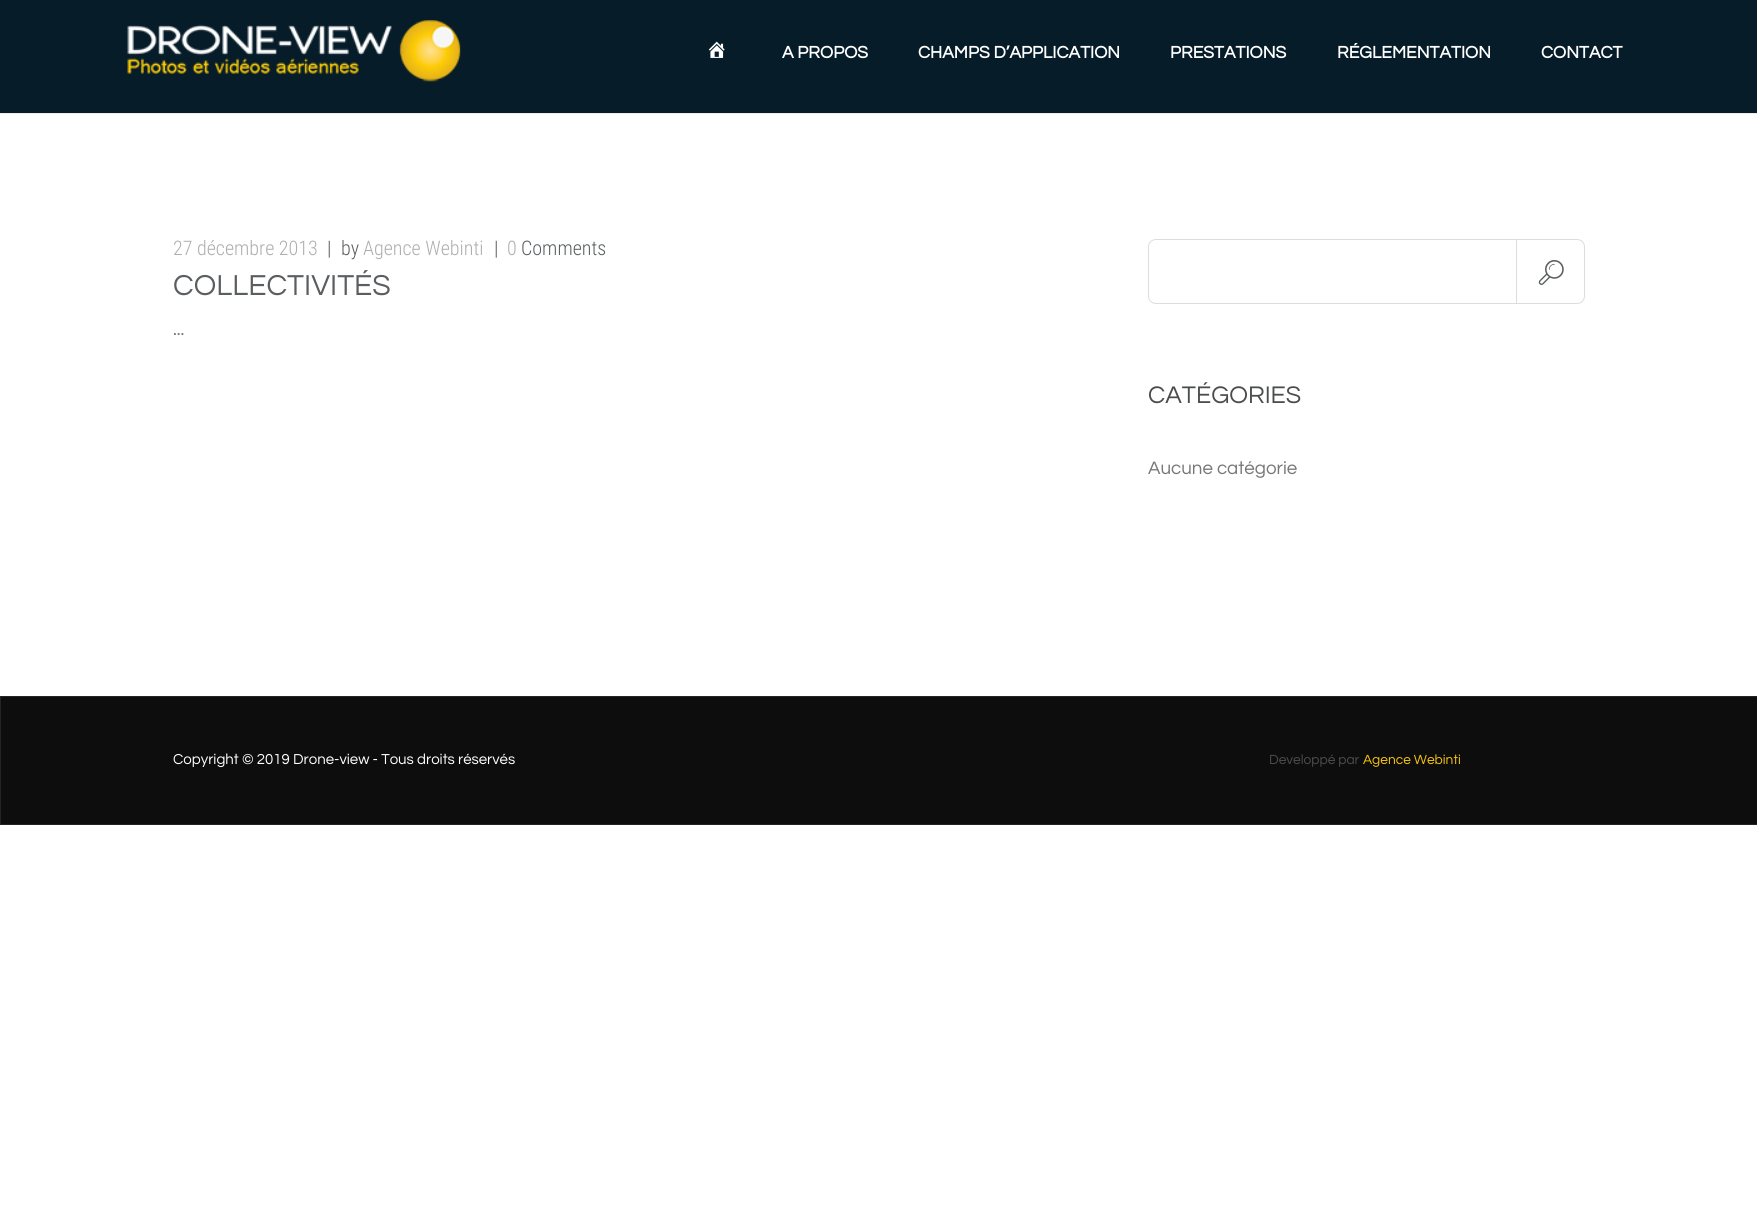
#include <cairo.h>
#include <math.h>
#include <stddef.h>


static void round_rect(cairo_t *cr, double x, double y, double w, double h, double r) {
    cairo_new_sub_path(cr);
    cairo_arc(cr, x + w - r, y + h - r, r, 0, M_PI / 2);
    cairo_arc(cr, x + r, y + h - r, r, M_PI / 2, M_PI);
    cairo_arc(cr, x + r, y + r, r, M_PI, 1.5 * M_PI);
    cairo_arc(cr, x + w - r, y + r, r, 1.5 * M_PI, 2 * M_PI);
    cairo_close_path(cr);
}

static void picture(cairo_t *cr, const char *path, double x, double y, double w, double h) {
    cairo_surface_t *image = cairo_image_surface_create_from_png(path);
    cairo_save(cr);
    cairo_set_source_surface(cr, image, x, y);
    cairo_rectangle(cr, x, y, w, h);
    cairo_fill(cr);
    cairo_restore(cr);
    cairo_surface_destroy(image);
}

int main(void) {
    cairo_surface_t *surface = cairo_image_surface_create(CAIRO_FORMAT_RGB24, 1757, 1208);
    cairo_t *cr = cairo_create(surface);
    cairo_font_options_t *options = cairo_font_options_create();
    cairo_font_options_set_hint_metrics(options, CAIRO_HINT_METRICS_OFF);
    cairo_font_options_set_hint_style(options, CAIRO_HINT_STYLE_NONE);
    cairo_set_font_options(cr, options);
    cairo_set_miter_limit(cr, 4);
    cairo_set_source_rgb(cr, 1, 1, 1);
    cairo_paint(cr);
    cairo_set_source_rgb(cr, 0.027, 0.11, 0.161);
    cairo_rectangle(cr, 0, 0, 1757, 113);
    cairo_fill(cr);
    cairo_set_source_rgb(cr, 0.925, 0.925, 0.925);
    cairo_rectangle(cr, 0, 113, 1757, 1);
    cairo_fill(cr);
    picture(cr, "img1.png", 127, 20, 334, 62);
    picture(cr, "img2.png", 708, 41, 17, 17);
    cairo_select_font_face(cr, "Questrial", CAIRO_FONT_SLANT_NORMAL, CAIRO_FONT_WEIGHT_BOLD);
    cairo_set_font_size(cr, 17.5);
    cairo_set_source_rgb(cr, 1, 1, 1);
    cairo_move_to(cr, 782, 58);
    cairo_show_text(cr, "A PROPOS");
    cairo_move_to(cr, 918, 58);
    cairo_show_text(cr, "CHAMPS D’APPLICATION");
    cairo_move_to(cr, 1170, 58);
    cairo_show_text(cr, "PRESTATIONS");
    cairo_move_to(cr, 1337, 58);
    cairo_show_text(cr, "RÉGLEMENTATION");
    cairo_move_to(cr, 1541, 58);
    cairo_show_text(cr, "CONTACT");
    cairo_select_font_face(cr, "Roboto Condensed Light", CAIRO_FONT_SLANT_NORMAL, CAIRO_FONT_WEIGHT_NORMAL);
    cairo_set_font_size(cr, 20);
    cairo_set_source_rgb(cr, 0.682, 0.682, 0.682);
    cairo_move_to(cr, 173, 255);
    cairo_show_text(cr, "27 décembre 2013");
    cairo_set_source_rgb(cr, 0.357, 0.369, 0.376);
    cairo_move_to(cr, 327, 255);
    cairo_show_text(cr, "|");
    cairo_move_to(cr, 341, 255);
    cairo_show_text(cr, "by");
    cairo_set_source_rgb(cr, 0.682, 0.682, 0.682);
    cairo_move_to(cr, 363, 255);
    cairo_show_text(cr, "Agence Webinti");
    cairo_set_source_rgb(cr, 0.357, 0.369, 0.376);
    cairo_move_to(cr, 494, 255);
    cairo_show_text(cr, "|");
    cairo_set_source_rgb(cr, 0.682, 0.682, 0.682);
    cairo_move_to(cr, 507, 255);
    cairo_show_text(cr, "0");
    cairo_set_source_rgb(cr, 0.357, 0.369, 0.376);
    cairo_move_to(cr, 521, 255);
    cairo_show_text(cr, "Comments");
    cairo_select_font_face(cr, "Questrial", CAIRO_FONT_SLANT_NORMAL, CAIRO_FONT_WEIGHT_NORMAL);
    cairo_set_font_size(cr, 30);
    cairo_move_to(cr, 173, 295);
    cairo_show_text(cr, "COLLECTIVITÉS");
    cairo_set_font_size(cr, 18.75);
    cairo_set_source_rgb(cr, 0.467, 0.467, 0.467);
    cairo_move_to(cr, 173, 335);
    cairo_show_text(cr, "...");
    round_rect(cr, 1148.5, 239.5, 436, 64, 7.5);
    cairo_set_source_rgb(cr, 0.867, 0.867, 0.867);
    cairo_set_line_width(cr, 1);
    cairo_stroke(cr);
    cairo_set_source_rgb(cr, 0.863, 0.863, 0.863);
    cairo_rectangle(cr, 1516, 239, 1, 65);
    cairo_fill(cr);
    picture(cr, "img3.png", 1538, 260, 26, 25);
    cairo_set_font_size(cr, 25);
    cairo_set_source_rgb(cr, 0.294, 0.298, 0.302);
    cairo_move_to(cr, 1148, 403);
    cairo_show_text(cr, "CATÉGORIES");
    cairo_set_font_size(cr, 18.75);
    cairo_set_source_rgb(cr, 0.467, 0.467, 0.467);
    cairo_move_to(cr, 1148, 474);
    cairo_show_text(cr, "Aucune catégorie");
    cairo_set_source_rgb(cr, 0.051, 0.051, 0.051);
    cairo_rectangle(cr, 0.5, 696.5, 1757, 128);
    cairo_fill_preserve(cr);
    cairo_set_source_rgb(cr, 0.141, 0.141, 0.141);
    cairo_stroke(cr);
    cairo_set_font_size(cr, 15);
    cairo_set_source_rgb(cr, 1, 1, 1);
    cairo_move_to(cr, 173, 764);
    cairo_show_text(cr, "Copyright © 2019 Drone-view - Tous droits réservés");
    cairo_set_font_size(cr, 13.75);
    cairo_set_source_rgb(cr, 0.294, 0.298, 0.302);
    cairo_move_to(cr, 1269, 764);
    cairo_show_text(cr, "Developpé par");
    cairo_set_source_rgb(cr, 0.961, 0.769, 0.051);
    cairo_move_to(cr, 1363, 764);
    cairo_show_text(cr, "Agence Webinti");
    cairo_surface_write_to_png(surface, "page.png");
    cairo_font_options_destroy(options);
    cairo_destroy(cr);
    cairo_surface_destroy(surface);
    return 0;
}
